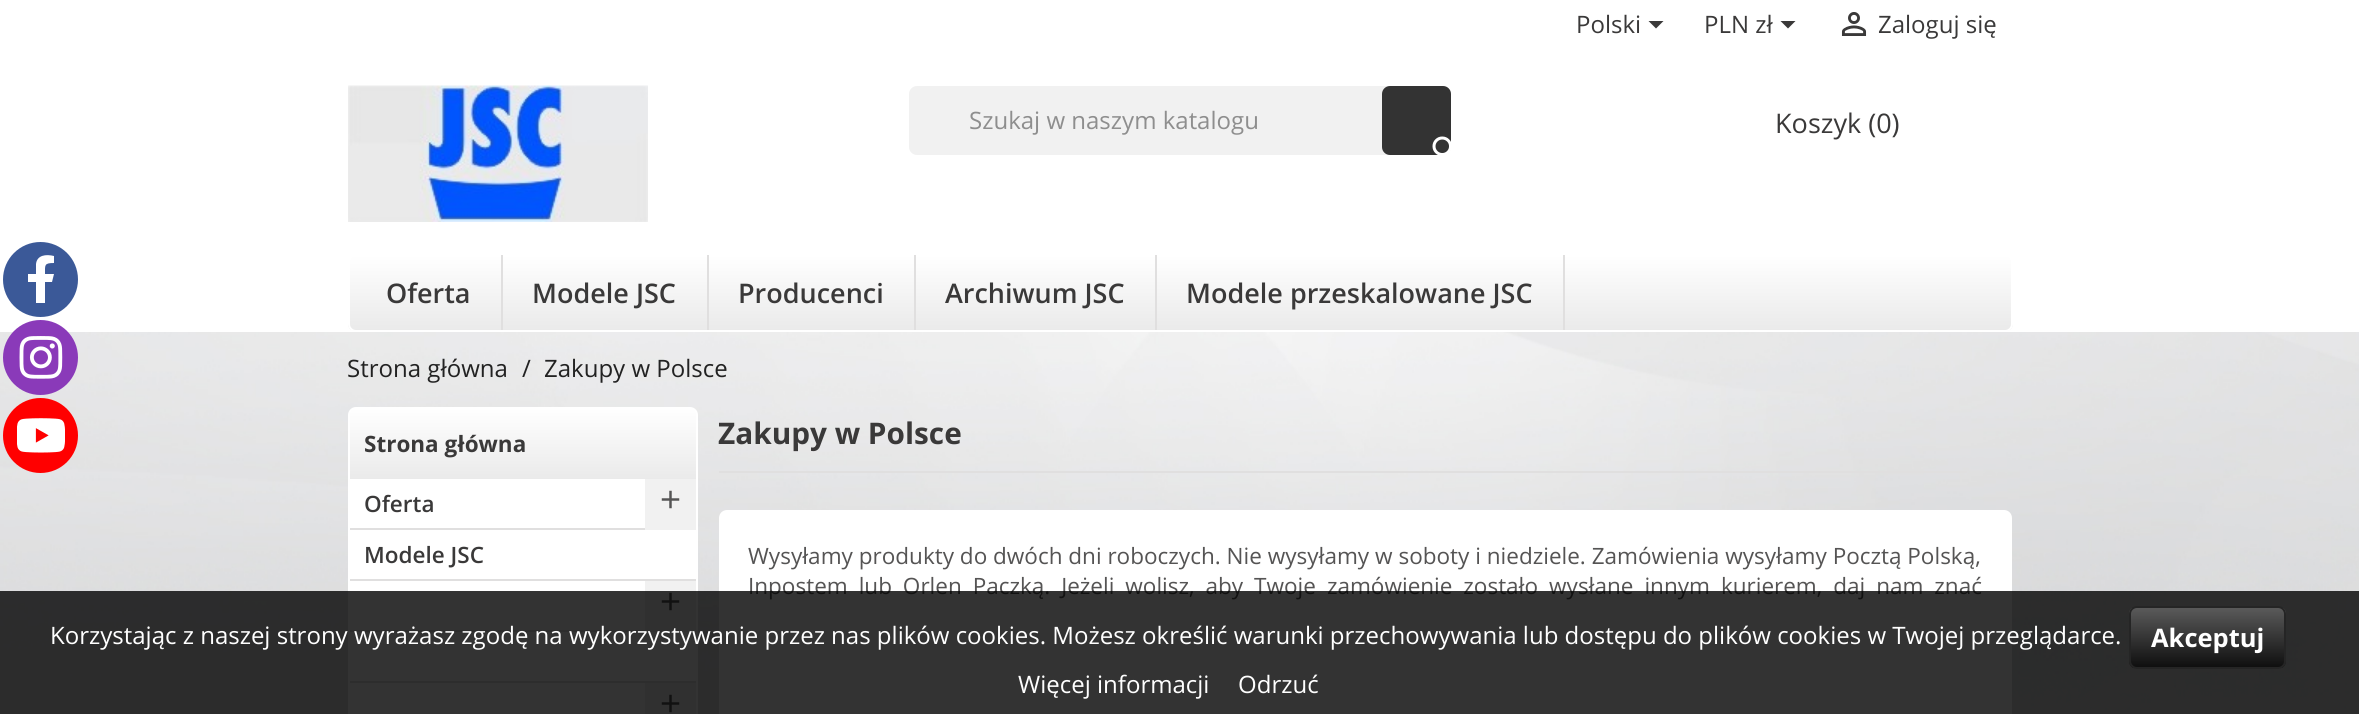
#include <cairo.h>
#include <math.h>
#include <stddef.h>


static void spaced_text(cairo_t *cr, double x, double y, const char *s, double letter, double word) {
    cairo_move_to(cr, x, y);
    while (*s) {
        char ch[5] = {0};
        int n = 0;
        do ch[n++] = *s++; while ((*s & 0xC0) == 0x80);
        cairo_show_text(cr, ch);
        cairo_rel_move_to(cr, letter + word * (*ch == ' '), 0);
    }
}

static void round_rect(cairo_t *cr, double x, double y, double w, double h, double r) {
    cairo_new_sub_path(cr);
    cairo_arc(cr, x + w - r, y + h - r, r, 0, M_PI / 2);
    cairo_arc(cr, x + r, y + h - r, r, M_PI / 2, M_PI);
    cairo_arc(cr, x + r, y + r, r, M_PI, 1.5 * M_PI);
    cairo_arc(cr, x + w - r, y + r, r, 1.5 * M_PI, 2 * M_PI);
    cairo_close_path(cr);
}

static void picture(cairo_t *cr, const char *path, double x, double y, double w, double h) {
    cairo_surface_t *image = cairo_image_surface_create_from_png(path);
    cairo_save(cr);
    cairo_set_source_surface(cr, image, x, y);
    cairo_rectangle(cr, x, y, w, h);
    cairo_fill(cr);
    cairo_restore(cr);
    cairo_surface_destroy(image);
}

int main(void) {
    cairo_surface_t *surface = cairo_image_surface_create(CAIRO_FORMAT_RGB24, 2359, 714);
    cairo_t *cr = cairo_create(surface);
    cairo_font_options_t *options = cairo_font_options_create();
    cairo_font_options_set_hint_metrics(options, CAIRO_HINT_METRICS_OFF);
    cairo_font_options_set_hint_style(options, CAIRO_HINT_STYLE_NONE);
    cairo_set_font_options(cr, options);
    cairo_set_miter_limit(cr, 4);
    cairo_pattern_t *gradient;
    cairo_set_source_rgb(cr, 1, 1, 1);
    cairo_paint(cr);
    picture(cr, "img1.png", 0, 332, 2359, 382);
    cairo_set_source_rgb(cr, 0.231, 0.349, 0.596);
    cairo_arc(cr, 40.5, 279.5, 37.5, 0, 2 * M_PI);
    cairo_fill(cr);
    cairo_save(cr);
    cairo_rectangle(cr, 17, 255, 48, 48);
    cairo_clip(cr);
    cairo_set_source_rgb(cr, 1, 1, 1);
    cairo_new_path(cr);
    cairo_move_to(cr, 52, 282);
    cairo_line_to(cr, 54, 274);
    cairo_line_to(cr, 45, 274);
    cairo_curve_to(cr, 45, 265, 44, 263, 54, 263);
    cairo_line_to(cr, 54, 256);
    cairo_curve_to(cr, 46, 254, 37, 255, 36, 264);
    cairo_line_to(cr, 36, 274);
    cairo_line_to(cr, 28, 274);
    cairo_line_to(cr, 28, 282);
    cairo_line_to(cr, 36, 282);
    cairo_line_to(cr, 36, 304);
    cairo_line_to(cr, 45, 304);
    cairo_line_to(cr, 45, 282);
    cairo_close_path(cr);
    cairo_fill(cr);
    cairo_restore(cr);
    cairo_set_source_rgb(cr, 0.541, 0.227, 0.725);
    cairo_arc(cr, 40.5, 357.5, 37.5, 0, 2 * M_PI);
    cairo_fill(cr);
    picture(cr, "img2.png", 19, 336, 44, 43);
    cairo_set_source_rgb(cr, 1, 0, 0);
    cairo_arc(cr, 40.5, 435.5, 37.5, 0, 2 * M_PI);
    cairo_fill(cr);
    picture(cr, "img3.png", 17, 418, 48, 35);
    cairo_select_font_face(cr, "Open Sans", CAIRO_FONT_SLANT_NORMAL, CAIRO_FONT_WEIGHT_NORMAL);
    cairo_set_font_size(cr, 24);
    cairo_set_source_rgb(cr, 0.227, 0.224, 0.224);
    cairo_move_to(cr, 1576, 33);
    cairo_show_text(cr, "Polski");
    cairo_new_path(cr);
    cairo_move_to(cr, 1648.5, 21);
    cairo_line_to(cr, 1663.5, 21);
    cairo_line_to(cr, 1656, 28.5);
    cairo_close_path(cr);
    cairo_fill(cr);
    cairo_move_to(cr, 1704, 33);
    cairo_show_text(cr, "PLN zł");
    cairo_new_path(cr);
    cairo_move_to(cr, 1780.5, 21);
    cairo_line_to(cr, 1795.5, 21);
    cairo_line_to(cr, 1788, 28.5);
    cairo_close_path(cr);
    cairo_fill(cr);
    picture(cr, "img4.png", 1841, 12, 26, 24);
    cairo_move_to(cr, 1878, 33);
    cairo_show_text(cr, "Zaloguj się");
    picture(cr, "img5.png", 348, 85, 300, 137);
    cairo_set_source_rgb(cr, 0.945, 0.945, 0.945);
    round_rect(cr, 909, 86, 542, 69, 8);
    cairo_fill(cr);
    cairo_set_source_rgb(cr, 0.557, 0.557, 0.557);
    cairo_move_to(cr, 969, 129);
    cairo_show_text(cr, "Szukaj w naszym katalogu");
    cairo_set_source_rgb(cr, 0.2, 0.2, 0.2);
    round_rect(cr, 1382, 86, 69, 69, 8);
    cairo_fill(cr);
    picture(cr, "img6.png", 1432, 136, 19, 19);
    cairo_set_font_size(cr, 27);
    cairo_set_source_rgb(cr, 0.227, 0.224, 0.224);
    cairo_move_to(cr, 1775, 133);
    cairo_show_text(cr, "Koszyk (0)");
    cairo_save(cr);
    round_rect(cr, 348, 254, 1665, 78, 8);
    cairo_clip(cr);
    gradient = cairo_pattern_create_linear(1181, 255, 1181, 330);
    cairo_pattern_add_color_stop_rgba(gradient, 0, 1, 1, 1, 1);
    cairo_pattern_add_color_stop_rgba(gradient, 1, 0.918, 0.918, 0.918, 1);
    cairo_set_source(cr, gradient);
    cairo_pattern_destroy(gradient);
    cairo_rectangle(cr, 348, 255, 1665, 75);
    cairo_fill(cr);
    cairo_restore(cr);
    round_rect(cr, 349, 255, 1663, 76, 7);
    cairo_set_source_rgb(cr, 1, 1, 1);
    cairo_stroke(cr);
    cairo_set_source_rgb(cr, 0.878, 0.875, 0.875);
    cairo_rectangle(cr, 501, 255, 2, 75);
    cairo_fill(cr);
    cairo_select_font_face(cr, "Open Sans SemiBold", CAIRO_FONT_SLANT_NORMAL, CAIRO_FONT_WEIGHT_NORMAL);
    cairo_set_source_rgb(cr, 0.227, 0.224, 0.224);
    cairo_move_to(cr, 386, 303);
    cairo_show_text(cr, "Oferta");
    cairo_set_source_rgb(cr, 0.878, 0.875, 0.875);
    cairo_rectangle(cr, 707, 255, 2, 75);
    cairo_fill(cr);
    cairo_set_source_rgb(cr, 0.227, 0.224, 0.224);
    cairo_move_to(cr, 532, 303);
    cairo_show_text(cr, "Modele JSC");
    cairo_set_source_rgb(cr, 0.878, 0.875, 0.875);
    cairo_rectangle(cr, 914, 255, 2, 75);
    cairo_fill(cr);
    cairo_set_source_rgb(cr, 0.227, 0.224, 0.224);
    cairo_move_to(cr, 738, 303);
    cairo_show_text(cr, "Producenci");
    cairo_set_source_rgb(cr, 0.878, 0.875, 0.875);
    cairo_rectangle(cr, 1155, 255, 2, 75);
    cairo_fill(cr);
    cairo_set_source_rgb(cr, 0.227, 0.224, 0.224);
    cairo_move_to(cr, 945, 303);
    cairo_show_text(cr, "Archiwum JSC");
    cairo_set_source_rgb(cr, 0.878, 0.875, 0.875);
    cairo_rectangle(cr, 1563, 255, 2, 75);
    cairo_fill(cr);
    cairo_set_source_rgb(cr, 0.227, 0.224, 0.224);
    cairo_move_to(cr, 1186, 303);
    cairo_show_text(cr, "Modele przeskalowane JSC");
    cairo_select_font_face(cr, "Open Sans", CAIRO_FONT_SLANT_NORMAL, CAIRO_FONT_WEIGHT_NORMAL);
    cairo_set_font_size(cr, 24);
    cairo_set_source_rgb(cr, 0.133, 0.133, 0.133);
    cairo_move_to(cr, 347, 377);
    cairo_show_text(cr, "Strona główna");
    cairo_move_to(cr, 522, 377);
    cairo_show_text(cr, "/");
    cairo_move_to(cr, 544, 377);
    cairo_show_text(cr, "Zakupy w Polsce");
    cairo_set_source_rgb(cr, 1, 1, 1);
    round_rect(cr, 349, 408, 348, 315, 7);
    cairo_fill_preserve(cr);
    cairo_stroke(cr);
    gradient = cairo_pattern_create_linear(523, 408, 523, 479);
    cairo_pattern_add_color_stop_rgba(gradient, 0, 1, 1, 1, 1);
    cairo_pattern_add_color_stop_rgba(gradient, 1, 0.918, 0.918, 0.918, 1);
    cairo_set_source(cr, gradient);
    cairo_pattern_destroy(gradient);
    cairo_new_path(cr);
    cairo_move_to(cr, 356, 408);
    cairo_line_to(cr, 690, 408);
    cairo_curve_to(cr, 693.5, 408, 696, 410.5, 696, 414);
    cairo_line_to(cr, 696, 479);
    cairo_line_to(cr, 350, 479);
    cairo_line_to(cr, 350, 414);
    cairo_curve_to(cr, 350, 410.5, 352.5, 408, 356, 408);
    cairo_close_path(cr);
    cairo_fill(cr);
    cairo_select_font_face(cr, "Open Sans", CAIRO_FONT_SLANT_NORMAL, CAIRO_FONT_WEIGHT_BOLD);
    cairo_set_font_size(cr, 22.5);
    cairo_set_source_rgb(cr, 0.227, 0.224, 0.224);
    cairo_move_to(cr, 364, 452);
    cairo_show_text(cr, "Strona główna");
    cairo_select_font_face(cr, "Open Sans SemiBold", CAIRO_FONT_SLANT_NORMAL, CAIRO_FONT_WEIGHT_NORMAL);
    cairo_move_to(cr, 364, 512);
    cairo_show_text(cr, "Oferta");
    cairo_set_source_rgb(cr, 0.878, 0.875, 0.875);
    cairo_rectangle(cr, 350, 528, 295, 2);
    cairo_fill(cr);
    cairo_set_source_rgb(cr, 0.945, 0.945, 0.945);
    cairo_rectangle(cr, 645, 479, 51, 51);
    cairo_fill(cr);
    picture(cr, "img7.png", 661, 490, 19, 19);
    cairo_set_source_rgb(cr, 0.227, 0.224, 0.224);
    cairo_move_to(cr, 364, 563);
    cairo_show_text(cr, "Modele JSC");
    cairo_set_source_rgb(cr, 0.878, 0.875, 0.875);
    cairo_rectangle(cr, 350, 579, 346, 2);
    cairo_fill(cr);
    cairo_rectangle(cr, 350, 630, 295, 2);
    cairo_fill(cr);
    cairo_set_source_rgb(cr, 0.945, 0.945, 0.945);
    cairo_rectangle(cr, 645, 581, 51, 51);
    cairo_fill(cr);
    picture(cr, "img7.png", 661, 592, 19, 19);
    cairo_set_source_rgb(cr, 0.878, 0.875, 0.875);
    cairo_rectangle(cr, 350, 681, 346, 2);
    cairo_fill(cr);
    cairo_set_source_rgb(cr, 0.945, 0.945, 0.945);
    cairo_rectangle(cr, 645, 683, 51, 31);
    cairo_fill(cr);
    picture(cr, "img7.png", 661, 694, 19, 19);
    cairo_set_source_rgb(cr, 0.878, 0.875, 0.875);
    cairo_rectangle(cr, 719, 471, 1248, 2);
    cairo_fill(cr);
    cairo_select_font_face(cr, "Open Sans", CAIRO_FONT_SLANT_NORMAL, CAIRO_FONT_WEIGHT_BOLD);
    cairo_set_font_size(cr, 29.75);
    cairo_set_source_rgb(cr, 0.227, 0.224, 0.224);
    cairo_move_to(cr, 718, 444);
    cairo_show_text(cr, "Zakupy w Polsce");
    cairo_set_source_rgb(cr, 1, 1, 1);
    round_rect(cr, 719, 510, 1293, 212, 8);
    cairo_fill(cr);
    cairo_select_font_face(cr, "Open Sans", CAIRO_FONT_SLANT_NORMAL, CAIRO_FONT_WEIGHT_NORMAL);
    cairo_set_font_size(cr, 22.5);
    cairo_set_source_rgb(cr, 0.333, 0.329, 0.329);
    cairo_move_to(cr, 748, 564);
    cairo_show_text(cr, "Wysyłamy produkty do dwóch dni roboczych. Nie wysyłamy w soboty i niedziele. Zamówienia wysyłamy Pocztą Polską,");
    spaced_text(cr, 748, 594, "Inpostem lub Orlen Paczką. Jeżeli wolisz, aby Twoje zamówienie zostało wysłane innym kurierem, daj nam znać", 0, 5.1);
    cairo_set_source_rgba(cr, 0, 0, 0, 0.8);
    cairo_rectangle(cr, 0, 591, 2359, 123);
    cairo_fill(cr);
    cairo_set_font_size(cr, 24);
    cairo_set_source_rgb(cr, 1, 1, 1);
    cairo_move_to(cr, 50, 644);
    cairo_show_text(cr, "Korzystając z naszej strony wyrażasz zgodę na wykorzystywanie przez nas plików cookies. Możesz określić warunki przechowywania lub dostępu do plików cookies w Twojej przeglądarce.");
    cairo_save(cr);
    round_rect(cr, 2129, 606, 157, 63, 8);
    cairo_clip(cr);
    gradient = cairo_pattern_create_linear(2207, 608, 2207, 668);
    cairo_pattern_add_color_stop_rgba(gradient, 0, 0.353, 0.353, 0.353, 1);
    cairo_pattern_add_color_stop_rgba(gradient, 1, 0.055, 0.055, 0.055, 1);
    cairo_set_source(cr, gradient);
    cairo_pattern_destroy(gradient);
    cairo_rectangle(cr, 2129, 608, 157, 60);
    cairo_fill(cr);
    cairo_restore(cr);
    round_rect(cr, 2130, 607, 155, 61, 7);
    cairo_set_source_rgb(cr, 0.145, 0.145, 0.145);
    cairo_stroke(cr);
    cairo_select_font_face(cr, "Open Sans", CAIRO_FONT_SLANT_NORMAL, CAIRO_FONT_WEIGHT_BOLD);
    cairo_set_font_size(cr, 25.5);
    cairo_set_source_rgb(cr, 1, 1, 1);
    cairo_move_to(cr, 2151, 647);
    cairo_show_text(cr, "Akceptuj");
    cairo_select_font_face(cr, "Open Sans", CAIRO_FONT_SLANT_NORMAL, CAIRO_FONT_WEIGHT_NORMAL);
    cairo_set_font_size(cr, 24);
    cairo_move_to(cr, 1018, 693);
    cairo_show_text(cr, "Więcej informacji");
    cairo_move_to(cr, 1238, 693);
    cairo_show_text(cr, "Odrzuć");
    cairo_surface_write_to_png(surface, "page.png");
    cairo_font_options_destroy(options);
    cairo_destroy(cr);
    cairo_surface_destroy(surface);
    return 0;
}
